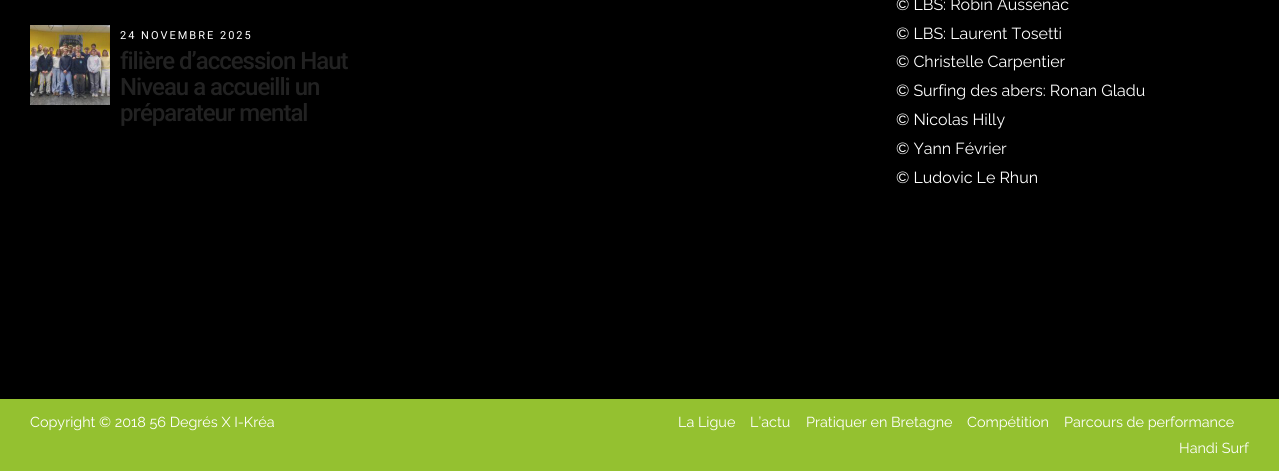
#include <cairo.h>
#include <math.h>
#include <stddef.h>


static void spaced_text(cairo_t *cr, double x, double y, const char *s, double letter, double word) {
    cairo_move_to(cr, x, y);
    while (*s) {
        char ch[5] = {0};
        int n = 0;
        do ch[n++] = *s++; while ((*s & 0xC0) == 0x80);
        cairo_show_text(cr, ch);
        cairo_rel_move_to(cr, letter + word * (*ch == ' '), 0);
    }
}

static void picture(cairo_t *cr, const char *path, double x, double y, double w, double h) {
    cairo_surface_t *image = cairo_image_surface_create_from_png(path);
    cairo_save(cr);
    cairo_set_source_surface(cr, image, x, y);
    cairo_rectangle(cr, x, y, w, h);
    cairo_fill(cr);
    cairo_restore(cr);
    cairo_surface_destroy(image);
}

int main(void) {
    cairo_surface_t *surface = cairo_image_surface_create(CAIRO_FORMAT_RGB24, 1279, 471);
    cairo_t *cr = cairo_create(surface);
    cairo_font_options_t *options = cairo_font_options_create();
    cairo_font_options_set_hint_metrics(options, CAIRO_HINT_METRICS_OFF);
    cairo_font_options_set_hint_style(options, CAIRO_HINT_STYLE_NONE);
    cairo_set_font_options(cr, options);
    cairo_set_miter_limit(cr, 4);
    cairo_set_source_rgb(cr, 0, 0, 0);
    cairo_paint(cr);
    picture(cr, "img1.png", 30, 25, 80, 80);
    cairo_select_font_face(cr, "Roboto", CAIRO_FONT_SLANT_NORMAL, CAIRO_FONT_WEIGHT_NORMAL);
    cairo_set_font_size(cr, 11);
    cairo_set_source_rgb(cr, 1, 1, 1);
    spaced_text(cr, 120, 39, "24 NOVEMBRE 2025", 2, 0);
    cairo_select_font_face(cr, "Roboto Medium", CAIRO_FONT_SLANT_NORMAL, CAIRO_FONT_WEIGHT_NORMAL);
    cairo_set_font_size(cr, 24);
    cairo_set_source_rgb(cr, 0.133, 0.133, 0.133);
    spaced_text(cr, 120, 69, "filière d’accession Haut", -1, 0);
    spaced_text(cr, 120, 95, "Niveau a accueilli un", -1, 0);
    spaced_text(cr, 120, 121, "préparateur mental", -1, 0);
    cairo_select_font_face(cr, "Raleway", CAIRO_FONT_SLANT_NORMAL, CAIRO_FONT_WEIGHT_NORMAL);
    cairo_set_font_size(cr, 16);
    cairo_set_source_rgb(cr, 1, 1, 1);
    cairo_move_to(cr, 896, 10);
    cairo_show_text(cr, "© LBS: Robin Aussenac");
    cairo_move_to(cr, 896, 39);
    cairo_show_text(cr, "© LBS: Laurent Tosetti");
    cairo_move_to(cr, 896, 67);
    cairo_show_text(cr, "© Christelle Carpentier");
    cairo_move_to(cr, 896, 96);
    cairo_show_text(cr, "© Surfing des abers: Ronan Gladu");
    cairo_move_to(cr, 896, 125);
    cairo_show_text(cr, "© Nicolas Hilly");
    cairo_move_to(cr, 896, 154);
    cairo_show_text(cr, "© Yann Février");
    cairo_move_to(cr, 896, 183);
    cairo_show_text(cr, "© Ludovic Le Rhun");
    cairo_set_source_rgb(cr, 0.58, 0.757, 0.188);
    cairo_rectangle(cr, 0, 399, 1279, 72);
    cairo_fill(cr);
    cairo_set_font_size(cr, 14.4);
    cairo_set_source_rgb(cr, 1, 1, 1);
    cairo_move_to(cr, 30, 427);
    cairo_show_text(cr, "Copyright © 2018 56 Degrés X I-Kréa");
    cairo_move_to(cr, 678, 427);
    cairo_show_text(cr, "La Ligue");
    cairo_move_to(cr, 750, 427);
    cairo_show_text(cr, "L’actu");
    cairo_move_to(cr, 806, 427);
    cairo_show_text(cr, "Pratiquer en Bretagne");
    cairo_move_to(cr, 967, 427);
    cairo_show_text(cr, "Compétition");
    cairo_move_to(cr, 1064, 427);
    cairo_show_text(cr, "Parcours de performance");
    cairo_move_to(cr, 1179, 453);
    cairo_show_text(cr, "Handi Surf");
    cairo_surface_write_to_png(surface, "page.png");
    cairo_font_options_destroy(options);
    cairo_destroy(cr);
    cairo_surface_destroy(surface);
    return 0;
}
